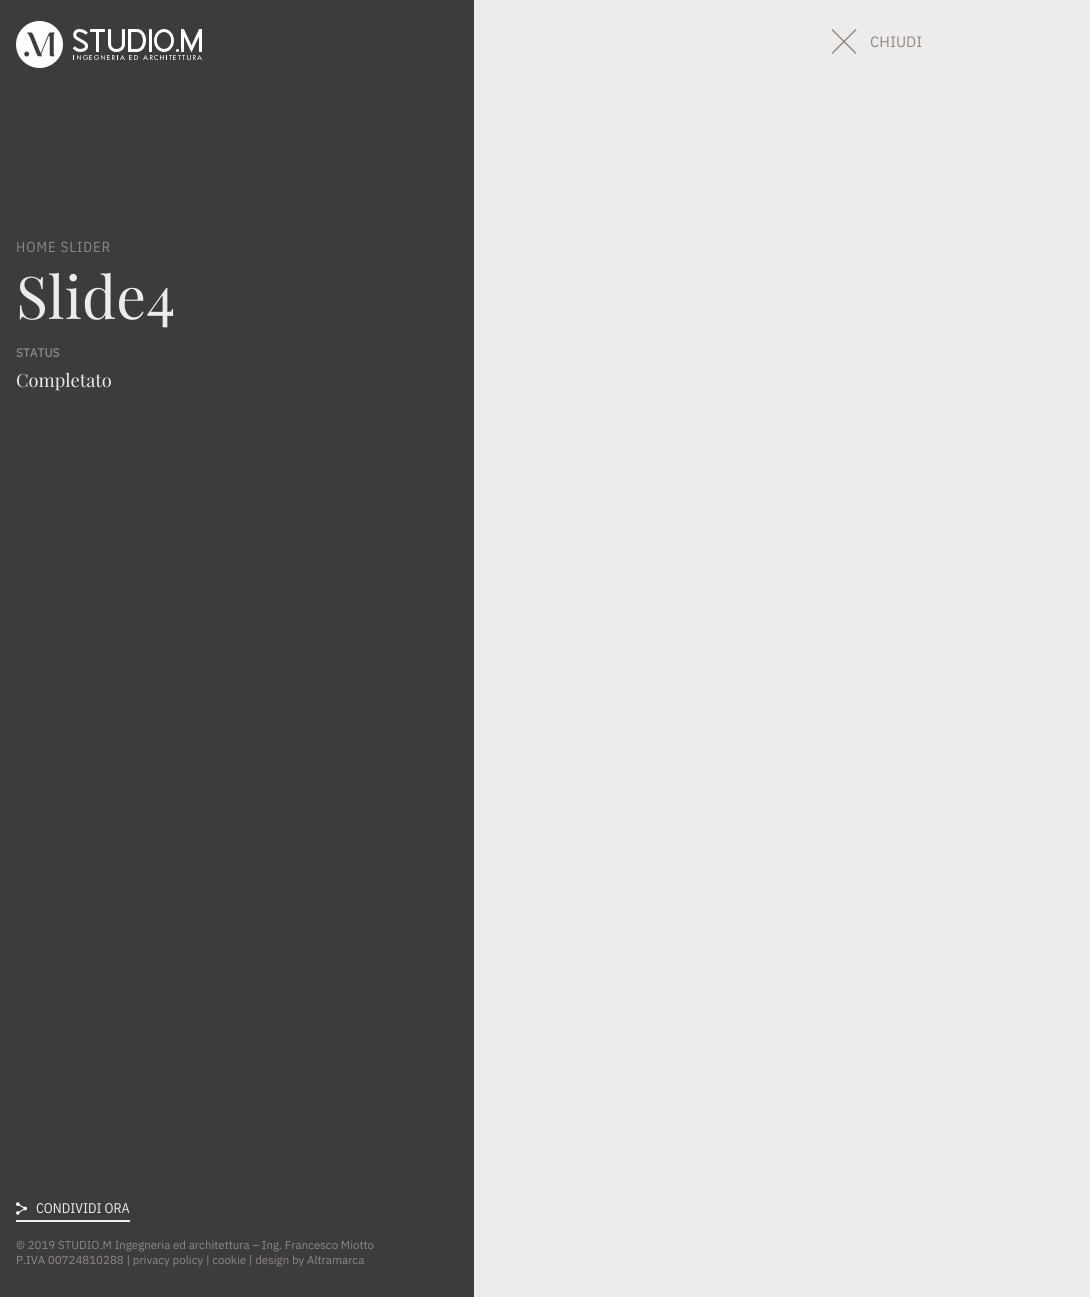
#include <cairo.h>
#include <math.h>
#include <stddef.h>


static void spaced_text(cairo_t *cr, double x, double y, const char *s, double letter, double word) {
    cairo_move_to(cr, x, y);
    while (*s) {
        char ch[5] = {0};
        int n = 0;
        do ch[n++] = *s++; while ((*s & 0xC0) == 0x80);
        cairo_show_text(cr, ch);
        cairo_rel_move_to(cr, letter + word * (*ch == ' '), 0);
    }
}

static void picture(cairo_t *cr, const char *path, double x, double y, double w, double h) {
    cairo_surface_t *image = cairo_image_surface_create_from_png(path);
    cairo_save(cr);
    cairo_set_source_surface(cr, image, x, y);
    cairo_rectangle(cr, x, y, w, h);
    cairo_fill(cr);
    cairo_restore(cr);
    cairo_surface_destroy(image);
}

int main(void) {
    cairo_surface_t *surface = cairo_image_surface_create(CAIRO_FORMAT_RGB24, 1090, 1297);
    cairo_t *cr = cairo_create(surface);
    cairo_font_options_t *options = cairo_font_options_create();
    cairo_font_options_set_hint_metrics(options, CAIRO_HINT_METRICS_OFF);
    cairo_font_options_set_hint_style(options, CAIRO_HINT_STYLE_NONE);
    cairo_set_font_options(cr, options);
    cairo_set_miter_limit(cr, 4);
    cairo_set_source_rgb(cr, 0.239, 0.235, 0.239);
    cairo_paint(cr);
    picture(cr, "img1.png", 16, 21, 186, 47);
    cairo_set_source_rgb(cr, 0.933, 0.922, 0.918);
    cairo_rectangle(cr, 474, 0, 616, 1297);
    cairo_fill(cr);
    cairo_set_source_rgb(cr, 0.565, 0.529, 0.51);
    cairo_new_path(cr);
    cairo_move_to(cr, 832.5, 29);
    cairo_line_to(cr, 856.5, 53);
    cairo_line_to(cr, 855.5, 54);
    cairo_line_to(cr, 831.5, 30);
    cairo_close_path(cr);
    cairo_fill(cr);
    cairo_new_path(cr);
    cairo_move_to(cr, 831.5, 53);
    cairo_line_to(cr, 855.5, 29);
    cairo_line_to(cr, 856.5, 30);
    cairo_line_to(cr, 832.5, 54);
    cairo_close_path(cr);
    cairo_fill(cr);
    cairo_select_font_face(cr, "IBM Plex Sans", CAIRO_FONT_SLANT_NORMAL, CAIRO_FONT_WEIGHT_NORMAL);
    cairo_set_font_size(cr, 15);
    cairo_move_to(cr, 870, 47);
    cairo_show_text(cr, "CHIUDI");
    cairo_select_font_face(cr, "IBM Plex Sans Condensed", CAIRO_FONT_SLANT_NORMAL, CAIRO_FONT_WEIGHT_NORMAL);
    cairo_set_font_size(cr, 14.5);
    spaced_text(cr, 16, 252, "HOME SLIDER", 1, 0);
    cairo_select_font_face(cr, "Playfair Display", CAIRO_FONT_SLANT_NORMAL, CAIRO_FONT_WEIGHT_NORMAL);
    cairo_set_font_size(cr, 59);
    cairo_set_source_rgb(cr, 0.933, 0.922, 0.918);
    cairo_move_to(cr, 16, 319);
    cairo_show_text(cr, "Slide4");
    cairo_select_font_face(cr, "IBM Plex Sans", CAIRO_FONT_SLANT_NORMAL, CAIRO_FONT_WEIGHT_BOLD);
    cairo_set_font_size(cr, 12);
    cairo_set_source_rgb(cr, 0.565, 0.529, 0.51);
    cairo_move_to(cr, 16, 357);
    cairo_show_text(cr, "STATUS");
    cairo_select_font_face(cr, "Playfair Display", CAIRO_FONT_SLANT_NORMAL, CAIRO_FONT_WEIGHT_NORMAL);
    cairo_set_font_size(cr, 18.25);
    cairo_set_source_rgb(cr, 0.933, 0.922, 0.918);
    cairo_move_to(cr, 16, 387);
    cairo_show_text(cr, "Completato");
    picture(cr, "img2.png", 16, 1202, 11, 13);
    cairo_rectangle(cr, 16, 1220, 114, 2);
    cairo_fill(cr);
    cairo_select_font_face(cr, "IBM Plex Sans Condensed", CAIRO_FONT_SLANT_NORMAL, CAIRO_FONT_WEIGHT_NORMAL);
    cairo_set_font_size(cr, 14);
    cairo_move_to(cr, 36, 1213);
    cairo_show_text(cr, "CONDIVIDI ORA");
    cairo_select_font_face(cr, "IBM Plex Sans", CAIRO_FONT_SLANT_NORMAL, CAIRO_FONT_WEIGHT_NORMAL);
    cairo_set_font_size(cr, 11.5);
    cairo_set_source_rgb(cr, 0.565, 0.529, 0.51);
    cairo_move_to(cr, 16, 1249);
    cairo_show_text(cr, "© 2019 STUDIO.M Ingegneria ed architettura – Ing. Francesco Miotto");
    cairo_move_to(cr, 16, 1264);
    cairo_show_text(cr, "P.IVA 00724810288 | privacy policy | cookie | design by Altramarca");
    cairo_surface_write_to_png(surface, "page.png");
    cairo_font_options_destroy(options);
    cairo_destroy(cr);
    cairo_surface_destroy(surface);
    return 0;
}
